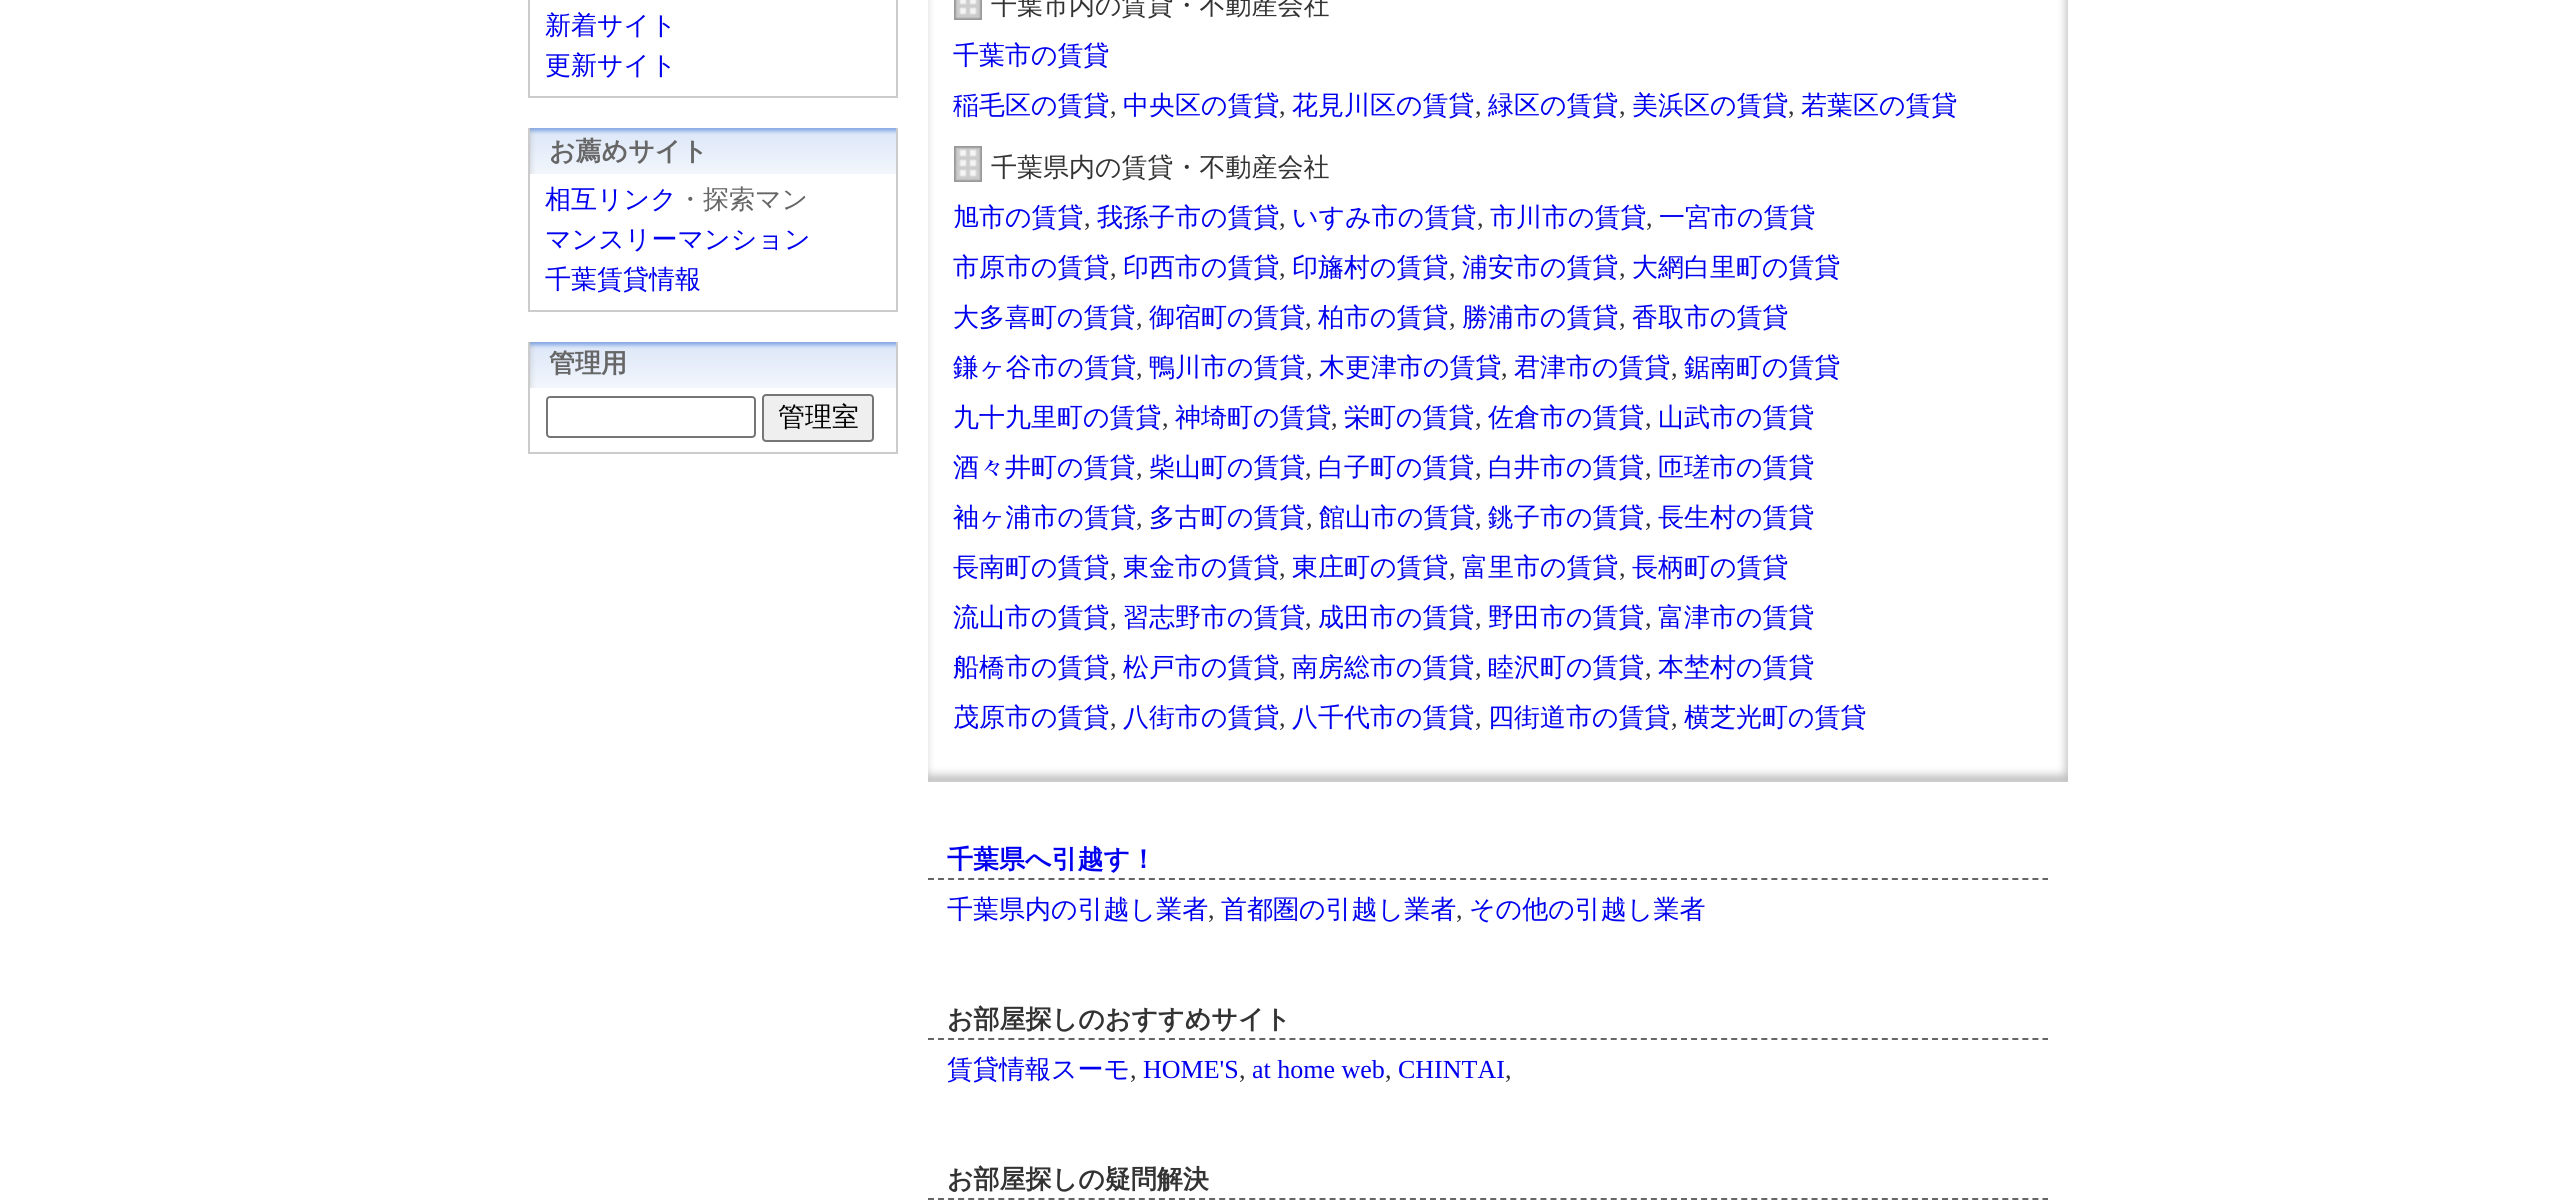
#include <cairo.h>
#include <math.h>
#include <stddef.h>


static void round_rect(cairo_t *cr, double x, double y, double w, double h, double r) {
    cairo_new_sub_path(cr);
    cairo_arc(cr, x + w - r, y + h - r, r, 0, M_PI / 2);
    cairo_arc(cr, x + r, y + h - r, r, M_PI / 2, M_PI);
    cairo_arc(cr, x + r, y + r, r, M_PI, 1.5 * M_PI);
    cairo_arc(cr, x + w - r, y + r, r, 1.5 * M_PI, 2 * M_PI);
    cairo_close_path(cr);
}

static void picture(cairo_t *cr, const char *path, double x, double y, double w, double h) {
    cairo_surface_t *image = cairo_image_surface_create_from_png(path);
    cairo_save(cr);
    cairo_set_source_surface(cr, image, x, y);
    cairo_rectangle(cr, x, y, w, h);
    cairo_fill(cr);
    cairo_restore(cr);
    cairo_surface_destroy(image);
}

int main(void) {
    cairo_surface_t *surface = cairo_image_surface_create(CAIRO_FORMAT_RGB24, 2574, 1202);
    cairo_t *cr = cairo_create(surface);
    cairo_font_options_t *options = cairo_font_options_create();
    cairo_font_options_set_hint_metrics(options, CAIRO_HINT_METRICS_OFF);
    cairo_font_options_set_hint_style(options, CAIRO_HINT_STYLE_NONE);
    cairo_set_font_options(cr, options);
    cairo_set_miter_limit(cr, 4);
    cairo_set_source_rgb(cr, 1, 1, 1);
    cairo_paint(cr);
    cairo_set_source_rgb(cr, 0.8, 0.8, 0.8);
    cairo_rectangle(cr, 896, 0, 2, 98);
    cairo_fill(cr);
    cairo_rectangle(cr, 528, 96, 370, 2);
    cairo_fill(cr);
    cairo_rectangle(cr, 528, 0, 2, 98);
    cairo_fill(cr);
    cairo_select_font_face(cr, "WenQuanYi Zen Hei Medium", CAIRO_FONT_SLANT_NORMAL, CAIRO_FONT_WEIGHT_NORMAL);
    cairo_set_font_size(cr, 26);
    cairo_set_source_rgb(cr, 0, 0, 0.933);
    cairo_move_to(cr, 545, 34);
    cairo_show_text(cr, "新着サイト");
    cairo_move_to(cr, 545, 74);
    cairo_show_text(cr, "更新サイト");
    picture(cr, "img1.png", 530, 128, 366, 46);
    cairo_set_source_rgb(cr, 0.8, 0.8, 0.8);
    cairo_rectangle(cr, 896, 128, 2, 184);
    cairo_fill(cr);
    cairo_rectangle(cr, 528, 128, 2, 46);
    cairo_fill(cr);
    cairo_select_font_face(cr, "WenQuanYi Zen Hei", CAIRO_FONT_SLANT_NORMAL, CAIRO_FONT_WEIGHT_BOLD);
    cairo_set_source_rgb(cr, 0.4, 0.4, 0.4);
    cairo_move_to(cr, 549, 160);
    cairo_show_text(cr, "お薦めサイト");
    cairo_set_source_rgb(cr, 0.8, 0.8, 0.8);
    cairo_rectangle(cr, 528, 310, 370, 2);
    cairo_fill(cr);
    cairo_rectangle(cr, 528, 174, 2, 138);
    cairo_fill(cr);
    cairo_select_font_face(cr, "WenQuanYi Zen Hei Medium", CAIRO_FONT_SLANT_NORMAL, CAIRO_FONT_WEIGHT_NORMAL);
    cairo_set_source_rgb(cr, 0, 0, 0.933);
    cairo_move_to(cr, 545, 208);
    cairo_show_text(cr, "相互リンク");
    cairo_set_source_rgb(cr, 0.4, 0.4, 0.4);
    cairo_move_to(cr, 677, 208);
    cairo_show_text(cr, "・探索マン");
    cairo_set_source_rgb(cr, 0, 0, 0.933);
    cairo_move_to(cr, 545, 248);
    cairo_show_text(cr, "マンスリーマンション");
    cairo_move_to(cr, 545, 288);
    cairo_show_text(cr, "千葉賃貸情報");
    picture(cr, "img1.png", 530, 342, 366, 46);
    cairo_set_source_rgb(cr, 0.8, 0.8, 0.8);
    cairo_rectangle(cr, 896, 342, 2, 112);
    cairo_fill(cr);
    cairo_rectangle(cr, 528, 342, 2, 46);
    cairo_fill(cr);
    cairo_select_font_face(cr, "WenQuanYi Zen Hei", CAIRO_FONT_SLANT_NORMAL, CAIRO_FONT_WEIGHT_BOLD);
    cairo_set_source_rgb(cr, 0.4, 0.4, 0.4);
    cairo_move_to(cr, 549, 372);
    cairo_show_text(cr, "管理用");
    cairo_set_source_rgb(cr, 0.8, 0.8, 0.8);
    cairo_rectangle(cr, 528, 452, 370, 2);
    cairo_fill(cr);
    cairo_rectangle(cr, 528, 388, 2, 66);
    cairo_fill(cr);
    round_rect(cr, 547, 397, 208, 40, 3);
    cairo_set_source_rgb(cr, 0.463, 0.463, 0.463);
    cairo_stroke(cr);
    cairo_set_source_rgb(cr, 0.937, 0.937, 0.937);
    round_rect(cr, 763, 395, 110, 46, 3);
    cairo_fill_preserve(cr);
    cairo_set_source_rgb(cr, 0.463, 0.463, 0.463);
    cairo_stroke(cr);
    cairo_select_font_face(cr, "WenQuanYi Zen Hei Medium", CAIRO_FONT_SLANT_NORMAL, CAIRO_FONT_WEIGHT_NORMAL);
    cairo_set_font_size(cr, 27);
    cairo_set_source_rgb(cr, 0, 0, 0);
    cairo_move_to(cr, 778, 426);
    cairo_show_text(cr, "管理室");
    picture(cr, "img2.png", 928, 0, 1140, 782);
    picture(cr, "img3.png", 954, 0, 28, 20);
    cairo_set_font_size(cr, 26);
    cairo_set_source_rgb(cr, 0.2, 0.2, 0.2);
    cairo_move_to(cr, 991, 14);
    cairo_show_text(cr, "千葉市内の賃貸・不動産会社");
    cairo_set_source_rgb(cr, 0, 0, 0.933);
    cairo_move_to(cr, 953, 64);
    cairo_show_text(cr, "千葉市の賃貸");
    cairo_move_to(cr, 953, 114);
    cairo_show_text(cr, "稲毛区の賃貸");
    cairo_select_font_face(cr, "Liberation Serif", CAIRO_FONT_SLANT_NORMAL, CAIRO_FONT_WEIGHT_NORMAL);
    cairo_set_source_rgb(cr, 0.2, 0.2, 0.2);
    cairo_move_to(cr, 1110, 114);
    cairo_show_text(cr, ",");
    cairo_select_font_face(cr, "WenQuanYi Zen Hei Medium", CAIRO_FONT_SLANT_NORMAL, CAIRO_FONT_WEIGHT_NORMAL);
    cairo_set_source_rgb(cr, 0, 0, 0.933);
    cairo_move_to(cr, 1123, 114);
    cairo_show_text(cr, "中央区の賃貸");
    cairo_select_font_face(cr, "Liberation Serif", CAIRO_FONT_SLANT_NORMAL, CAIRO_FONT_WEIGHT_NORMAL);
    cairo_set_source_rgb(cr, 0.2, 0.2, 0.2);
    cairo_move_to(cr, 1279, 114);
    cairo_show_text(cr, ",");
    cairo_select_font_face(cr, "WenQuanYi Zen Hei Medium", CAIRO_FONT_SLANT_NORMAL, CAIRO_FONT_WEIGHT_NORMAL);
    cairo_set_source_rgb(cr, 0, 0, 0.933);
    cairo_move_to(cr, 1292, 114);
    cairo_show_text(cr, "花見川区の賃貸");
    cairo_select_font_face(cr, "Liberation Serif", CAIRO_FONT_SLANT_NORMAL, CAIRO_FONT_WEIGHT_NORMAL);
    cairo_set_source_rgb(cr, 0.2, 0.2, 0.2);
    cairo_move_to(cr, 1475, 114);
    cairo_show_text(cr, ",");
    cairo_select_font_face(cr, "WenQuanYi Zen Hei Medium", CAIRO_FONT_SLANT_NORMAL, CAIRO_FONT_WEIGHT_NORMAL);
    cairo_set_source_rgb(cr, 0, 0, 0.933);
    cairo_move_to(cr, 1488, 114);
    cairo_show_text(cr, "緑区の賃貸");
    cairo_select_font_face(cr, "Liberation Serif", CAIRO_FONT_SLANT_NORMAL, CAIRO_FONT_WEIGHT_NORMAL);
    cairo_set_source_rgb(cr, 0.2, 0.2, 0.2);
    cairo_move_to(cr, 1619, 114);
    cairo_show_text(cr, ",");
    cairo_select_font_face(cr, "WenQuanYi Zen Hei Medium", CAIRO_FONT_SLANT_NORMAL, CAIRO_FONT_WEIGHT_NORMAL);
    cairo_set_source_rgb(cr, 0, 0, 0.933);
    cairo_move_to(cr, 1632, 114);
    cairo_show_text(cr, "美浜区の賃貸");
    cairo_select_font_face(cr, "Liberation Serif", CAIRO_FONT_SLANT_NORMAL, CAIRO_FONT_WEIGHT_NORMAL);
    cairo_set_source_rgb(cr, 0.2, 0.2, 0.2);
    cairo_move_to(cr, 1788, 114);
    cairo_show_text(cr, ",");
    cairo_select_font_face(cr, "WenQuanYi Zen Hei Medium", CAIRO_FONT_SLANT_NORMAL, CAIRO_FONT_WEIGHT_NORMAL);
    cairo_set_source_rgb(cr, 0, 0, 0.933);
    cairo_move_to(cr, 1801, 114);
    cairo_show_text(cr, "若葉区の賃貸");
    picture(cr, "img4.png", 954, 146, 28, 36);
    cairo_set_source_rgb(cr, 0.2, 0.2, 0.2);
    cairo_move_to(cr, 991, 176);
    cairo_show_text(cr, "千葉県内の賃貸・不動産会社");
    cairo_set_source_rgb(cr, 0, 0, 0.933);
    cairo_move_to(cr, 953, 226);
    cairo_show_text(cr, "旭市の賃貸");
    cairo_select_font_face(cr, "Liberation Serif", CAIRO_FONT_SLANT_NORMAL, CAIRO_FONT_WEIGHT_NORMAL);
    cairo_set_source_rgb(cr, 0.2, 0.2, 0.2);
    cairo_move_to(cr, 1084, 226);
    cairo_show_text(cr, ",");
    cairo_select_font_face(cr, "WenQuanYi Zen Hei Medium", CAIRO_FONT_SLANT_NORMAL, CAIRO_FONT_WEIGHT_NORMAL);
    cairo_set_source_rgb(cr, 0, 0, 0.933);
    cairo_move_to(cr, 1097, 226);
    cairo_show_text(cr, "我孫子市の賃貸");
    cairo_select_font_face(cr, "Liberation Serif", CAIRO_FONT_SLANT_NORMAL, CAIRO_FONT_WEIGHT_NORMAL);
    cairo_set_source_rgb(cr, 0.2, 0.2, 0.2);
    cairo_move_to(cr, 1279, 226);
    cairo_show_text(cr, ",");
    cairo_select_font_face(cr, "WenQuanYi Zen Hei Medium", CAIRO_FONT_SLANT_NORMAL, CAIRO_FONT_WEIGHT_NORMAL);
    cairo_set_source_rgb(cr, 0, 0, 0.933);
    cairo_move_to(cr, 1292, 226);
    cairo_show_text(cr, "いすみ市の賃貸");
    cairo_select_font_face(cr, "Liberation Serif", CAIRO_FONT_SLANT_NORMAL, CAIRO_FONT_WEIGHT_NORMAL);
    cairo_set_source_rgb(cr, 0.2, 0.2, 0.2);
    cairo_move_to(cr, 1477, 226);
    cairo_show_text(cr, ",");
    cairo_select_font_face(cr, "WenQuanYi Zen Hei Medium", CAIRO_FONT_SLANT_NORMAL, CAIRO_FONT_WEIGHT_NORMAL);
    cairo_set_source_rgb(cr, 0, 0, 0.933);
    cairo_move_to(cr, 1490, 226);
    cairo_show_text(cr, "市川市の賃貸");
    cairo_select_font_face(cr, "Liberation Serif", CAIRO_FONT_SLANT_NORMAL, CAIRO_FONT_WEIGHT_NORMAL);
    cairo_set_source_rgb(cr, 0.2, 0.2, 0.2);
    cairo_move_to(cr, 1646, 226);
    cairo_show_text(cr, ",");
    cairo_select_font_face(cr, "WenQuanYi Zen Hei Medium", CAIRO_FONT_SLANT_NORMAL, CAIRO_FONT_WEIGHT_NORMAL);
    cairo_set_source_rgb(cr, 0, 0, 0.933);
    cairo_move_to(cr, 1659, 226);
    cairo_show_text(cr, "一宮市の賃貸");
    cairo_move_to(cr, 953, 276);
    cairo_show_text(cr, "市原市の賃貸");
    cairo_select_font_face(cr, "Liberation Serif", CAIRO_FONT_SLANT_NORMAL, CAIRO_FONT_WEIGHT_NORMAL);
    cairo_set_source_rgb(cr, 0.2, 0.2, 0.2);
    cairo_move_to(cr, 1110, 276);
    cairo_show_text(cr, ",");
    cairo_select_font_face(cr, "WenQuanYi Zen Hei Medium", CAIRO_FONT_SLANT_NORMAL, CAIRO_FONT_WEIGHT_NORMAL);
    cairo_set_source_rgb(cr, 0, 0, 0.933);
    cairo_move_to(cr, 1123, 276);
    cairo_show_text(cr, "印西市の賃貸");
    cairo_select_font_face(cr, "Liberation Serif", CAIRO_FONT_SLANT_NORMAL, CAIRO_FONT_WEIGHT_NORMAL);
    cairo_set_source_rgb(cr, 0.2, 0.2, 0.2);
    cairo_move_to(cr, 1279, 276);
    cairo_show_text(cr, ",");
    cairo_select_font_face(cr, "WenQuanYi Zen Hei Medium", CAIRO_FONT_SLANT_NORMAL, CAIRO_FONT_WEIGHT_NORMAL);
    cairo_set_source_rgb(cr, 0, 0, 0.933);
    cairo_move_to(cr, 1292, 276);
    cairo_show_text(cr, "印旛村の賃貸");
    cairo_select_font_face(cr, "Liberation Serif", CAIRO_FONT_SLANT_NORMAL, CAIRO_FONT_WEIGHT_NORMAL);
    cairo_set_source_rgb(cr, 0.2, 0.2, 0.2);
    cairo_move_to(cr, 1449, 276);
    cairo_show_text(cr, ",");
    cairo_select_font_face(cr, "WenQuanYi Zen Hei Medium", CAIRO_FONT_SLANT_NORMAL, CAIRO_FONT_WEIGHT_NORMAL);
    cairo_set_source_rgb(cr, 0, 0, 0.933);
    cairo_move_to(cr, 1462, 276);
    cairo_show_text(cr, "浦安市の賃貸");
    cairo_select_font_face(cr, "Liberation Serif", CAIRO_FONT_SLANT_NORMAL, CAIRO_FONT_WEIGHT_NORMAL);
    cairo_set_source_rgb(cr, 0.2, 0.2, 0.2);
    cairo_move_to(cr, 1619, 276);
    cairo_show_text(cr, ",");
    cairo_select_font_face(cr, "WenQuanYi Zen Hei Medium", CAIRO_FONT_SLANT_NORMAL, CAIRO_FONT_WEIGHT_NORMAL);
    cairo_set_source_rgb(cr, 0, 0, 0.933);
    cairo_move_to(cr, 1632, 276);
    cairo_show_text(cr, "大網白里町の賃貸");
    cairo_move_to(cr, 953, 326);
    cairo_show_text(cr, "大多喜町の賃貸");
    cairo_select_font_face(cr, "Liberation Serif", CAIRO_FONT_SLANT_NORMAL, CAIRO_FONT_WEIGHT_NORMAL);
    cairo_set_source_rgb(cr, 0.2, 0.2, 0.2);
    cairo_move_to(cr, 1136, 326);
    cairo_show_text(cr, ",");
    cairo_select_font_face(cr, "WenQuanYi Zen Hei Medium", CAIRO_FONT_SLANT_NORMAL, CAIRO_FONT_WEIGHT_NORMAL);
    cairo_set_source_rgb(cr, 0, 0, 0.933);
    cairo_move_to(cr, 1149, 326);
    cairo_show_text(cr, "御宿町の賃貸");
    cairo_select_font_face(cr, "Liberation Serif", CAIRO_FONT_SLANT_NORMAL, CAIRO_FONT_WEIGHT_NORMAL);
    cairo_set_source_rgb(cr, 0.2, 0.2, 0.2);
    cairo_move_to(cr, 1305, 326);
    cairo_show_text(cr, ",");
    cairo_select_font_face(cr, "WenQuanYi Zen Hei Medium", CAIRO_FONT_SLANT_NORMAL, CAIRO_FONT_WEIGHT_NORMAL);
    cairo_set_source_rgb(cr, 0, 0, 0.933);
    cairo_move_to(cr, 1318, 326);
    cairo_show_text(cr, "柏市の賃貸");
    cairo_select_font_face(cr, "Liberation Serif", CAIRO_FONT_SLANT_NORMAL, CAIRO_FONT_WEIGHT_NORMAL);
    cairo_set_source_rgb(cr, 0.2, 0.2, 0.2);
    cairo_move_to(cr, 1449, 326);
    cairo_show_text(cr, ",");
    cairo_select_font_face(cr, "WenQuanYi Zen Hei Medium", CAIRO_FONT_SLANT_NORMAL, CAIRO_FONT_WEIGHT_NORMAL);
    cairo_set_source_rgb(cr, 0, 0, 0.933);
    cairo_move_to(cr, 1462, 326);
    cairo_show_text(cr, "勝浦市の賃貸");
    cairo_select_font_face(cr, "Liberation Serif", CAIRO_FONT_SLANT_NORMAL, CAIRO_FONT_WEIGHT_NORMAL);
    cairo_set_source_rgb(cr, 0.2, 0.2, 0.2);
    cairo_move_to(cr, 1619, 326);
    cairo_show_text(cr, ",");
    cairo_select_font_face(cr, "WenQuanYi Zen Hei Medium", CAIRO_FONT_SLANT_NORMAL, CAIRO_FONT_WEIGHT_NORMAL);
    cairo_set_source_rgb(cr, 0, 0, 0.933);
    cairo_move_to(cr, 1632, 326);
    cairo_show_text(cr, "香取市の賃貸");
    cairo_move_to(cr, 953, 376);
    cairo_show_text(cr, "鎌ヶ谷市の賃貸");
    cairo_select_font_face(cr, "Liberation Serif", CAIRO_FONT_SLANT_NORMAL, CAIRO_FONT_WEIGHT_NORMAL);
    cairo_set_source_rgb(cr, 0.2, 0.2, 0.2);
    cairo_move_to(cr, 1136, 376);
    cairo_show_text(cr, ",");
    cairo_select_font_face(cr, "WenQuanYi Zen Hei Medium", CAIRO_FONT_SLANT_NORMAL, CAIRO_FONT_WEIGHT_NORMAL);
    cairo_set_source_rgb(cr, 0, 0, 0.933);
    cairo_move_to(cr, 1149, 376);
    cairo_show_text(cr, "鴨川市の賃貸");
    cairo_select_font_face(cr, "Liberation Serif", CAIRO_FONT_SLANT_NORMAL, CAIRO_FONT_WEIGHT_NORMAL);
    cairo_set_source_rgb(cr, 0.2, 0.2, 0.2);
    cairo_move_to(cr, 1306, 376);
    cairo_show_text(cr, ",");
    cairo_select_font_face(cr, "WenQuanYi Zen Hei Medium", CAIRO_FONT_SLANT_NORMAL, CAIRO_FONT_WEIGHT_NORMAL);
    cairo_set_source_rgb(cr, 0, 0, 0.933);
    cairo_move_to(cr, 1319, 376);
    cairo_show_text(cr, "木更津市の賃貸");
    cairo_select_font_face(cr, "Liberation Serif", CAIRO_FONT_SLANT_NORMAL, CAIRO_FONT_WEIGHT_NORMAL);
    cairo_set_source_rgb(cr, 0.2, 0.2, 0.2);
    cairo_move_to(cr, 1501, 376);
    cairo_show_text(cr, ",");
    cairo_select_font_face(cr, "WenQuanYi Zen Hei Medium", CAIRO_FONT_SLANT_NORMAL, CAIRO_FONT_WEIGHT_NORMAL);
    cairo_set_source_rgb(cr, 0, 0, 0.933);
    cairo_move_to(cr, 1514, 376);
    cairo_show_text(cr, "君津市の賃貸");
    cairo_select_font_face(cr, "Liberation Serif", CAIRO_FONT_SLANT_NORMAL, CAIRO_FONT_WEIGHT_NORMAL);
    cairo_set_source_rgb(cr, 0.2, 0.2, 0.2);
    cairo_move_to(cr, 1671, 376);
    cairo_show_text(cr, ",");
    cairo_select_font_face(cr, "WenQuanYi Zen Hei Medium", CAIRO_FONT_SLANT_NORMAL, CAIRO_FONT_WEIGHT_NORMAL);
    cairo_set_source_rgb(cr, 0, 0, 0.933);
    cairo_move_to(cr, 1684, 376);
    cairo_show_text(cr, "鋸南町の賃貸");
    cairo_move_to(cr, 953, 426);
    cairo_show_text(cr, "九十九里町の賃貸");
    cairo_select_font_face(cr, "Liberation Serif", CAIRO_FONT_SLANT_NORMAL, CAIRO_FONT_WEIGHT_NORMAL);
    cairo_set_source_rgb(cr, 0.2, 0.2, 0.2);
    cairo_move_to(cr, 1162, 426);
    cairo_show_text(cr, ",");
    cairo_select_font_face(cr, "WenQuanYi Zen Hei Medium", CAIRO_FONT_SLANT_NORMAL, CAIRO_FONT_WEIGHT_NORMAL);
    cairo_set_source_rgb(cr, 0, 0, 0.933);
    cairo_move_to(cr, 1175, 426);
    cairo_show_text(cr, "神埼町の賃貸");
    cairo_select_font_face(cr, "Liberation Serif", CAIRO_FONT_SLANT_NORMAL, CAIRO_FONT_WEIGHT_NORMAL);
    cairo_set_source_rgb(cr, 0.2, 0.2, 0.2);
    cairo_move_to(cr, 1331, 426);
    cairo_show_text(cr, ",");
    cairo_select_font_face(cr, "WenQuanYi Zen Hei Medium", CAIRO_FONT_SLANT_NORMAL, CAIRO_FONT_WEIGHT_NORMAL);
    cairo_set_source_rgb(cr, 0, 0, 0.933);
    cairo_move_to(cr, 1344, 426);
    cairo_show_text(cr, "栄町の賃貸");
    cairo_select_font_face(cr, "Liberation Serif", CAIRO_FONT_SLANT_NORMAL, CAIRO_FONT_WEIGHT_NORMAL);
    cairo_set_source_rgb(cr, 0.2, 0.2, 0.2);
    cairo_move_to(cr, 1475, 426);
    cairo_show_text(cr, ",");
    cairo_select_font_face(cr, "WenQuanYi Zen Hei Medium", CAIRO_FONT_SLANT_NORMAL, CAIRO_FONT_WEIGHT_NORMAL);
    cairo_set_source_rgb(cr, 0, 0, 0.933);
    cairo_move_to(cr, 1488, 426);
    cairo_show_text(cr, "佐倉市の賃貸");
    cairo_select_font_face(cr, "Liberation Serif", CAIRO_FONT_SLANT_NORMAL, CAIRO_FONT_WEIGHT_NORMAL);
    cairo_set_source_rgb(cr, 0.2, 0.2, 0.2);
    cairo_move_to(cr, 1645, 426);
    cairo_show_text(cr, ",");
    cairo_select_font_face(cr, "WenQuanYi Zen Hei Medium", CAIRO_FONT_SLANT_NORMAL, CAIRO_FONT_WEIGHT_NORMAL);
    cairo_set_source_rgb(cr, 0, 0, 0.933);
    cairo_move_to(cr, 1658, 426);
    cairo_show_text(cr, "山武市の賃貸");
    cairo_move_to(cr, 953, 476);
    cairo_show_text(cr, "酒々井町の賃貸");
    cairo_select_font_face(cr, "Liberation Serif", CAIRO_FONT_SLANT_NORMAL, CAIRO_FONT_WEIGHT_NORMAL);
    cairo_set_source_rgb(cr, 0.2, 0.2, 0.2);
    cairo_move_to(cr, 1136, 476);
    cairo_show_text(cr, ",");
    cairo_select_font_face(cr, "WenQuanYi Zen Hei Medium", CAIRO_FONT_SLANT_NORMAL, CAIRO_FONT_WEIGHT_NORMAL);
    cairo_set_source_rgb(cr, 0, 0, 0.933);
    cairo_move_to(cr, 1149, 476);
    cairo_show_text(cr, "柴山町の賃貸");
    cairo_select_font_face(cr, "Liberation Serif", CAIRO_FONT_SLANT_NORMAL, CAIRO_FONT_WEIGHT_NORMAL);
    cairo_set_source_rgb(cr, 0.2, 0.2, 0.2);
    cairo_move_to(cr, 1305, 476);
    cairo_show_text(cr, ",");
    cairo_select_font_face(cr, "WenQuanYi Zen Hei Medium", CAIRO_FONT_SLANT_NORMAL, CAIRO_FONT_WEIGHT_NORMAL);
    cairo_set_source_rgb(cr, 0, 0, 0.933);
    cairo_move_to(cr, 1318, 476);
    cairo_show_text(cr, "白子町の賃貸");
    cairo_select_font_face(cr, "Liberation Serif", CAIRO_FONT_SLANT_NORMAL, CAIRO_FONT_WEIGHT_NORMAL);
    cairo_set_source_rgb(cr, 0.2, 0.2, 0.2);
    cairo_move_to(cr, 1475, 476);
    cairo_show_text(cr, ",");
    cairo_select_font_face(cr, "WenQuanYi Zen Hei Medium", CAIRO_FONT_SLANT_NORMAL, CAIRO_FONT_WEIGHT_NORMAL);
    cairo_set_source_rgb(cr, 0, 0, 0.933);
    cairo_move_to(cr, 1488, 476);
    cairo_show_text(cr, "白井市の賃貸");
    cairo_select_font_face(cr, "Liberation Serif", CAIRO_FONT_SLANT_NORMAL, CAIRO_FONT_WEIGHT_NORMAL);
    cairo_set_source_rgb(cr, 0.2, 0.2, 0.2);
    cairo_move_to(cr, 1645, 476);
    cairo_show_text(cr, ",");
    cairo_select_font_face(cr, "WenQuanYi Zen Hei Medium", CAIRO_FONT_SLANT_NORMAL, CAIRO_FONT_WEIGHT_NORMAL);
    cairo_set_source_rgb(cr, 0, 0, 0.933);
    cairo_move_to(cr, 1658, 476);
    cairo_show_text(cr, "匝瑳市の賃貸");
    cairo_move_to(cr, 953, 526);
    cairo_show_text(cr, "袖ヶ浦市の賃貸");
    cairo_select_font_face(cr, "Liberation Serif", CAIRO_FONT_SLANT_NORMAL, CAIRO_FONT_WEIGHT_NORMAL);
    cairo_set_source_rgb(cr, 0.2, 0.2, 0.2);
    cairo_move_to(cr, 1136, 526);
    cairo_show_text(cr, ",");
    cairo_select_font_face(cr, "WenQuanYi Zen Hei Medium", CAIRO_FONT_SLANT_NORMAL, CAIRO_FONT_WEIGHT_NORMAL);
    cairo_set_source_rgb(cr, 0, 0, 0.933);
    cairo_move_to(cr, 1149, 526);
    cairo_show_text(cr, "多古町の賃貸");
    cairo_select_font_face(cr, "Liberation Serif", CAIRO_FONT_SLANT_NORMAL, CAIRO_FONT_WEIGHT_NORMAL);
    cairo_set_source_rgb(cr, 0.2, 0.2, 0.2);
    cairo_move_to(cr, 1306, 526);
    cairo_show_text(cr, ",");
    cairo_select_font_face(cr, "WenQuanYi Zen Hei Medium", CAIRO_FONT_SLANT_NORMAL, CAIRO_FONT_WEIGHT_NORMAL);
    cairo_set_source_rgb(cr, 0, 0, 0.933);
    cairo_move_to(cr, 1319, 526);
    cairo_show_text(cr, "館山市の賃貸");
    cairo_select_font_face(cr, "Liberation Serif", CAIRO_FONT_SLANT_NORMAL, CAIRO_FONT_WEIGHT_NORMAL);
    cairo_set_source_rgb(cr, 0.2, 0.2, 0.2);
    cairo_move_to(cr, 1475, 526);
    cairo_show_text(cr, ",");
    cairo_select_font_face(cr, "WenQuanYi Zen Hei Medium", CAIRO_FONT_SLANT_NORMAL, CAIRO_FONT_WEIGHT_NORMAL);
    cairo_set_source_rgb(cr, 0, 0, 0.933);
    cairo_move_to(cr, 1488, 526);
    cairo_show_text(cr, "銚子市の賃貸");
    cairo_select_font_face(cr, "Liberation Serif", CAIRO_FONT_SLANT_NORMAL, CAIRO_FONT_WEIGHT_NORMAL);
    cairo_set_source_rgb(cr, 0.2, 0.2, 0.2);
    cairo_move_to(cr, 1645, 526);
    cairo_show_text(cr, ",");
    cairo_select_font_face(cr, "WenQuanYi Zen Hei Medium", CAIRO_FONT_SLANT_NORMAL, CAIRO_FONT_WEIGHT_NORMAL);
    cairo_set_source_rgb(cr, 0, 0, 0.933);
    cairo_move_to(cr, 1658, 526);
    cairo_show_text(cr, "長生村の賃貸");
    cairo_move_to(cr, 953, 576);
    cairo_show_text(cr, "長南町の賃貸");
    cairo_select_font_face(cr, "Liberation Serif", CAIRO_FONT_SLANT_NORMAL, CAIRO_FONT_WEIGHT_NORMAL);
    cairo_set_source_rgb(cr, 0.2, 0.2, 0.2);
    cairo_move_to(cr, 1110, 576);
    cairo_show_text(cr, ",");
    cairo_select_font_face(cr, "WenQuanYi Zen Hei Medium", CAIRO_FONT_SLANT_NORMAL, CAIRO_FONT_WEIGHT_NORMAL);
    cairo_set_source_rgb(cr, 0, 0, 0.933);
    cairo_move_to(cr, 1123, 576);
    cairo_show_text(cr, "東金市の賃貸");
    cairo_select_font_face(cr, "Liberation Serif", CAIRO_FONT_SLANT_NORMAL, CAIRO_FONT_WEIGHT_NORMAL);
    cairo_set_source_rgb(cr, 0.2, 0.2, 0.2);
    cairo_move_to(cr, 1279, 576);
    cairo_show_text(cr, ",");
    cairo_select_font_face(cr, "WenQuanYi Zen Hei Medium", CAIRO_FONT_SLANT_NORMAL, CAIRO_FONT_WEIGHT_NORMAL);
    cairo_set_source_rgb(cr, 0, 0, 0.933);
    cairo_move_to(cr, 1292, 576);
    cairo_show_text(cr, "東庄町の賃貸");
    cairo_select_font_face(cr, "Liberation Serif", CAIRO_FONT_SLANT_NORMAL, CAIRO_FONT_WEIGHT_NORMAL);
    cairo_set_source_rgb(cr, 0.2, 0.2, 0.2);
    cairo_move_to(cr, 1449, 576);
    cairo_show_text(cr, ",");
    cairo_select_font_face(cr, "WenQuanYi Zen Hei Medium", CAIRO_FONT_SLANT_NORMAL, CAIRO_FONT_WEIGHT_NORMAL);
    cairo_set_source_rgb(cr, 0, 0, 0.933);
    cairo_move_to(cr, 1462, 576);
    cairo_show_text(cr, "富里市の賃貸");
    cairo_select_font_face(cr, "Liberation Serif", CAIRO_FONT_SLANT_NORMAL, CAIRO_FONT_WEIGHT_NORMAL);
    cairo_set_source_rgb(cr, 0.2, 0.2, 0.2);
    cairo_move_to(cr, 1619, 576);
    cairo_show_text(cr, ",");
    cairo_select_font_face(cr, "WenQuanYi Zen Hei Medium", CAIRO_FONT_SLANT_NORMAL, CAIRO_FONT_WEIGHT_NORMAL);
    cairo_set_source_rgb(cr, 0, 0, 0.933);
    cairo_move_to(cr, 1632, 576);
    cairo_show_text(cr, "長柄町の賃貸");
    cairo_move_to(cr, 953, 626);
    cairo_show_text(cr, "流山市の賃貸");
    cairo_select_font_face(cr, "Liberation Serif", CAIRO_FONT_SLANT_NORMAL, CAIRO_FONT_WEIGHT_NORMAL);
    cairo_set_source_rgb(cr, 0.2, 0.2, 0.2);
    cairo_move_to(cr, 1110, 626);
    cairo_show_text(cr, ",");
    cairo_select_font_face(cr, "WenQuanYi Zen Hei Medium", CAIRO_FONT_SLANT_NORMAL, CAIRO_FONT_WEIGHT_NORMAL);
    cairo_set_source_rgb(cr, 0, 0, 0.933);
    cairo_move_to(cr, 1123, 626);
    cairo_show_text(cr, "習志野市の賃貸");
    cairo_select_font_face(cr, "Liberation Serif", CAIRO_FONT_SLANT_NORMAL, CAIRO_FONT_WEIGHT_NORMAL);
    cairo_set_source_rgb(cr, 0.2, 0.2, 0.2);
    cairo_move_to(cr, 1305, 626);
    cairo_show_text(cr, ",");
    cairo_select_font_face(cr, "WenQuanYi Zen Hei Medium", CAIRO_FONT_SLANT_NORMAL, CAIRO_FONT_WEIGHT_NORMAL);
    cairo_set_source_rgb(cr, 0, 0, 0.933);
    cairo_move_to(cr, 1318, 626);
    cairo_show_text(cr, "成田市の賃貸");
    cairo_select_font_face(cr, "Liberation Serif", CAIRO_FONT_SLANT_NORMAL, CAIRO_FONT_WEIGHT_NORMAL);
    cairo_set_source_rgb(cr, 0.2, 0.2, 0.2);
    cairo_move_to(cr, 1475, 626);
    cairo_show_text(cr, ",");
    cairo_select_font_face(cr, "WenQuanYi Zen Hei Medium", CAIRO_FONT_SLANT_NORMAL, CAIRO_FONT_WEIGHT_NORMAL);
    cairo_set_source_rgb(cr, 0, 0, 0.933);
    cairo_move_to(cr, 1488, 626);
    cairo_show_text(cr, "野田市の賃貸");
    cairo_select_font_face(cr, "Liberation Serif", CAIRO_FONT_SLANT_NORMAL, CAIRO_FONT_WEIGHT_NORMAL);
    cairo_set_source_rgb(cr, 0.2, 0.2, 0.2);
    cairo_move_to(cr, 1645, 626);
    cairo_show_text(cr, ",");
    cairo_select_font_face(cr, "WenQuanYi Zen Hei Medium", CAIRO_FONT_SLANT_NORMAL, CAIRO_FONT_WEIGHT_NORMAL);
    cairo_set_source_rgb(cr, 0, 0, 0.933);
    cairo_move_to(cr, 1658, 626);
    cairo_show_text(cr, "富津市の賃貸");
    cairo_move_to(cr, 953, 676);
    cairo_show_text(cr, "船橋市の賃貸");
    cairo_select_font_face(cr, "Liberation Serif", CAIRO_FONT_SLANT_NORMAL, CAIRO_FONT_WEIGHT_NORMAL);
    cairo_set_source_rgb(cr, 0.2, 0.2, 0.2);
    cairo_move_to(cr, 1110, 676);
    cairo_show_text(cr, ",");
    cairo_select_font_face(cr, "WenQuanYi Zen Hei Medium", CAIRO_FONT_SLANT_NORMAL, CAIRO_FONT_WEIGHT_NORMAL);
    cairo_set_source_rgb(cr, 0, 0, 0.933);
    cairo_move_to(cr, 1123, 676);
    cairo_show_text(cr, "松戸市の賃貸");
    cairo_select_font_face(cr, "Liberation Serif", CAIRO_FONT_SLANT_NORMAL, CAIRO_FONT_WEIGHT_NORMAL);
    cairo_set_source_rgb(cr, 0.2, 0.2, 0.2);
    cairo_move_to(cr, 1279, 676);
    cairo_show_text(cr, ",");
    cairo_select_font_face(cr, "WenQuanYi Zen Hei Medium", CAIRO_FONT_SLANT_NORMAL, CAIRO_FONT_WEIGHT_NORMAL);
    cairo_set_source_rgb(cr, 0, 0, 0.933);
    cairo_move_to(cr, 1292, 676);
    cairo_show_text(cr, "南房総市の賃貸");
    cairo_select_font_face(cr, "Liberation Serif", CAIRO_FONT_SLANT_NORMAL, CAIRO_FONT_WEIGHT_NORMAL);
    cairo_set_source_rgb(cr, 0.2, 0.2, 0.2);
    cairo_move_to(cr, 1475, 676);
    cairo_show_text(cr, ",");
    cairo_select_font_face(cr, "WenQuanYi Zen Hei Medium", CAIRO_FONT_SLANT_NORMAL, CAIRO_FONT_WEIGHT_NORMAL);
    cairo_set_source_rgb(cr, 0, 0, 0.933);
    cairo_move_to(cr, 1488, 676);
    cairo_show_text(cr, "睦沢町の賃貸");
    cairo_select_font_face(cr, "Liberation Serif", CAIRO_FONT_SLANT_NORMAL, CAIRO_FONT_WEIGHT_NORMAL);
    cairo_set_source_rgb(cr, 0.2, 0.2, 0.2);
    cairo_move_to(cr, 1645, 676);
    cairo_show_text(cr, ",");
    cairo_select_font_face(cr, "WenQuanYi Zen Hei Medium", CAIRO_FONT_SLANT_NORMAL, CAIRO_FONT_WEIGHT_NORMAL);
    cairo_set_source_rgb(cr, 0, 0, 0.933);
    cairo_move_to(cr, 1658, 676);
    cairo_show_text(cr, "本埜村の賃貸");
    cairo_move_to(cr, 953, 726);
    cairo_show_text(cr, "茂原市の賃貸");
    cairo_select_font_face(cr, "Liberation Serif", CAIRO_FONT_SLANT_NORMAL, CAIRO_FONT_WEIGHT_NORMAL);
    cairo_set_source_rgb(cr, 0.2, 0.2, 0.2);
    cairo_move_to(cr, 1110, 726);
    cairo_show_text(cr, ",");
    cairo_select_font_face(cr, "WenQuanYi Zen Hei Medium", CAIRO_FONT_SLANT_NORMAL, CAIRO_FONT_WEIGHT_NORMAL);
    cairo_set_source_rgb(cr, 0, 0, 0.933);
    cairo_move_to(cr, 1123, 726);
    cairo_show_text(cr, "八街市の賃貸");
    cairo_select_font_face(cr, "Liberation Serif", CAIRO_FONT_SLANT_NORMAL, CAIRO_FONT_WEIGHT_NORMAL);
    cairo_set_source_rgb(cr, 0.2, 0.2, 0.2);
    cairo_move_to(cr, 1279, 726);
    cairo_show_text(cr, ",");
    cairo_select_font_face(cr, "WenQuanYi Zen Hei Medium", CAIRO_FONT_SLANT_NORMAL, CAIRO_FONT_WEIGHT_NORMAL);
    cairo_set_source_rgb(cr, 0, 0, 0.933);
    cairo_move_to(cr, 1292, 726);
    cairo_show_text(cr, "八千代市の賃貸");
    cairo_select_font_face(cr, "Liberation Serif", CAIRO_FONT_SLANT_NORMAL, CAIRO_FONT_WEIGHT_NORMAL);
    cairo_set_source_rgb(cr, 0.2, 0.2, 0.2);
    cairo_move_to(cr, 1475, 726);
    cairo_show_text(cr, ",");
    cairo_select_font_face(cr, "WenQuanYi Zen Hei Medium", CAIRO_FONT_SLANT_NORMAL, CAIRO_FONT_WEIGHT_NORMAL);
    cairo_set_source_rgb(cr, 0, 0, 0.933);
    cairo_move_to(cr, 1488, 726);
    cairo_show_text(cr, "四街道市の賃貸");
    cairo_select_font_face(cr, "Liberation Serif", CAIRO_FONT_SLANT_NORMAL, CAIRO_FONT_WEIGHT_NORMAL);
    cairo_set_source_rgb(cr, 0.2, 0.2, 0.2);
    cairo_move_to(cr, 1671, 726);
    cairo_show_text(cr, ",");
    cairo_select_font_face(cr, "WenQuanYi Zen Hei Medium", CAIRO_FONT_SLANT_NORMAL, CAIRO_FONT_WEIGHT_NORMAL);
    cairo_set_source_rgb(cr, 0, 0, 0.933);
    cairo_move_to(cr, 1684, 726);
    cairo_show_text(cr, "横芝光町の賃貸");
    cairo_new_path(cr);
    cairo_move_to(cr, 928, 879);
    cairo_line_to(cr, 2048, 879);
    cairo_set_source_rgb(cr, 0.4, 0.4, 0.4);
    cairo_set_dash(cr, (double[]){6, 4.04}, 2, 0);
    cairo_stroke(cr);
    cairo_select_font_face(cr, "WenQuanYi Zen Hei", CAIRO_FONT_SLANT_NORMAL, CAIRO_FONT_WEIGHT_BOLD);
    cairo_set_source_rgb(cr, 0, 0, 0.933);
    cairo_move_to(cr, 947, 868);
    cairo_show_text(cr, "千葉県へ引越す！");
    cairo_select_font_face(cr, "WenQuanYi Zen Hei Medium", CAIRO_FONT_SLANT_NORMAL, CAIRO_FONT_WEIGHT_NORMAL);
    cairo_move_to(cr, 947, 918);
    cairo_show_text(cr, "千葉県内の引越し業者");
    cairo_select_font_face(cr, "Liberation Serif", CAIRO_FONT_SLANT_NORMAL, CAIRO_FONT_WEIGHT_NORMAL);
    cairo_set_source_rgb(cr, 0.2, 0.2, 0.2);
    cairo_move_to(cr, 1208, 918);
    cairo_show_text(cr, ",");
    cairo_select_font_face(cr, "WenQuanYi Zen Hei Medium", CAIRO_FONT_SLANT_NORMAL, CAIRO_FONT_WEIGHT_NORMAL);
    cairo_set_source_rgb(cr, 0, 0, 0.933);
    cairo_move_to(cr, 1221, 918);
    cairo_show_text(cr, "首都圏の引越し業者");
    cairo_select_font_face(cr, "Liberation Serif", CAIRO_FONT_SLANT_NORMAL, CAIRO_FONT_WEIGHT_NORMAL);
    cairo_set_source_rgb(cr, 0.2, 0.2, 0.2);
    cairo_move_to(cr, 1456, 918);
    cairo_show_text(cr, ",");
    cairo_select_font_face(cr, "WenQuanYi Zen Hei Medium", CAIRO_FONT_SLANT_NORMAL, CAIRO_FONT_WEIGHT_NORMAL);
    cairo_set_source_rgb(cr, 0, 0, 0.933);
    cairo_move_to(cr, 1469, 918);
    cairo_show_text(cr, "その他の引越し業者");
    cairo_new_path(cr);
    cairo_move_to(cr, 928, 1039);
    cairo_line_to(cr, 2048, 1039);
    cairo_set_source_rgb(cr, 0.4, 0.4, 0.4);
    cairo_stroke(cr);
    cairo_select_font_face(cr, "WenQuanYi Zen Hei", CAIRO_FONT_SLANT_NORMAL, CAIRO_FONT_WEIGHT_BOLD);
    cairo_set_source_rgb(cr, 0.2, 0.2, 0.2);
    cairo_move_to(cr, 947, 1028);
    cairo_show_text(cr, "お部屋探しのおすすめサイト");
    cairo_select_font_face(cr, "WenQuanYi Zen Hei Medium", CAIRO_FONT_SLANT_NORMAL, CAIRO_FONT_WEIGHT_NORMAL);
    cairo_set_source_rgb(cr, 0, 0, 0.933);
    cairo_move_to(cr, 947, 1078);
    cairo_show_text(cr, "賃貸情報スーモ");
    cairo_select_font_face(cr, "Liberation Serif", CAIRO_FONT_SLANT_NORMAL, CAIRO_FONT_WEIGHT_NORMAL);
    cairo_set_source_rgb(cr, 0.2, 0.2, 0.2);
    cairo_move_to(cr, 1130, 1078);
    cairo_show_text(cr, ",");
    cairo_set_source_rgb(cr, 0, 0, 0.933);
    cairo_move_to(cr, 1143, 1078);
    cairo_show_text(cr, "HOME'S");
    cairo_set_source_rgb(cr, 0.2, 0.2, 0.2);
    cairo_move_to(cr, 1239, 1078);
    cairo_show_text(cr, ",");
    cairo_set_source_rgb(cr, 0, 0, 0.933);
    cairo_move_to(cr, 1252, 1078);
    cairo_show_text(cr, "at home web");
    cairo_set_source_rgb(cr, 0.2, 0.2, 0.2);
    cairo_move_to(cr, 1385, 1078);
    cairo_show_text(cr, ",");
    cairo_set_source_rgb(cr, 0, 0, 0.933);
    cairo_move_to(cr, 1398, 1078);
    cairo_show_text(cr, "CHINTAI");
    cairo_set_source_rgb(cr, 0.2, 0.2, 0.2);
    cairo_move_to(cr, 1505, 1078);
    cairo_show_text(cr, ",");
    cairo_new_path(cr);
    cairo_move_to(cr, 928, 1199);
    cairo_line_to(cr, 2048, 1199);
    cairo_set_source_rgb(cr, 0.4, 0.4, 0.4);
    cairo_stroke(cr);
    cairo_select_font_face(cr, "WenQuanYi Zen Hei", CAIRO_FONT_SLANT_NORMAL, CAIRO_FONT_WEIGHT_BOLD);
    cairo_set_source_rgb(cr, 0.2, 0.2, 0.2);
    cairo_move_to(cr, 947, 1188);
    cairo_show_text(cr, "お部屋探しの疑問解決");
    cairo_surface_write_to_png(surface, "page.png");
    cairo_font_options_destroy(options);
    cairo_destroy(cr);
    cairo_surface_destroy(surface);
    return 0;
}
